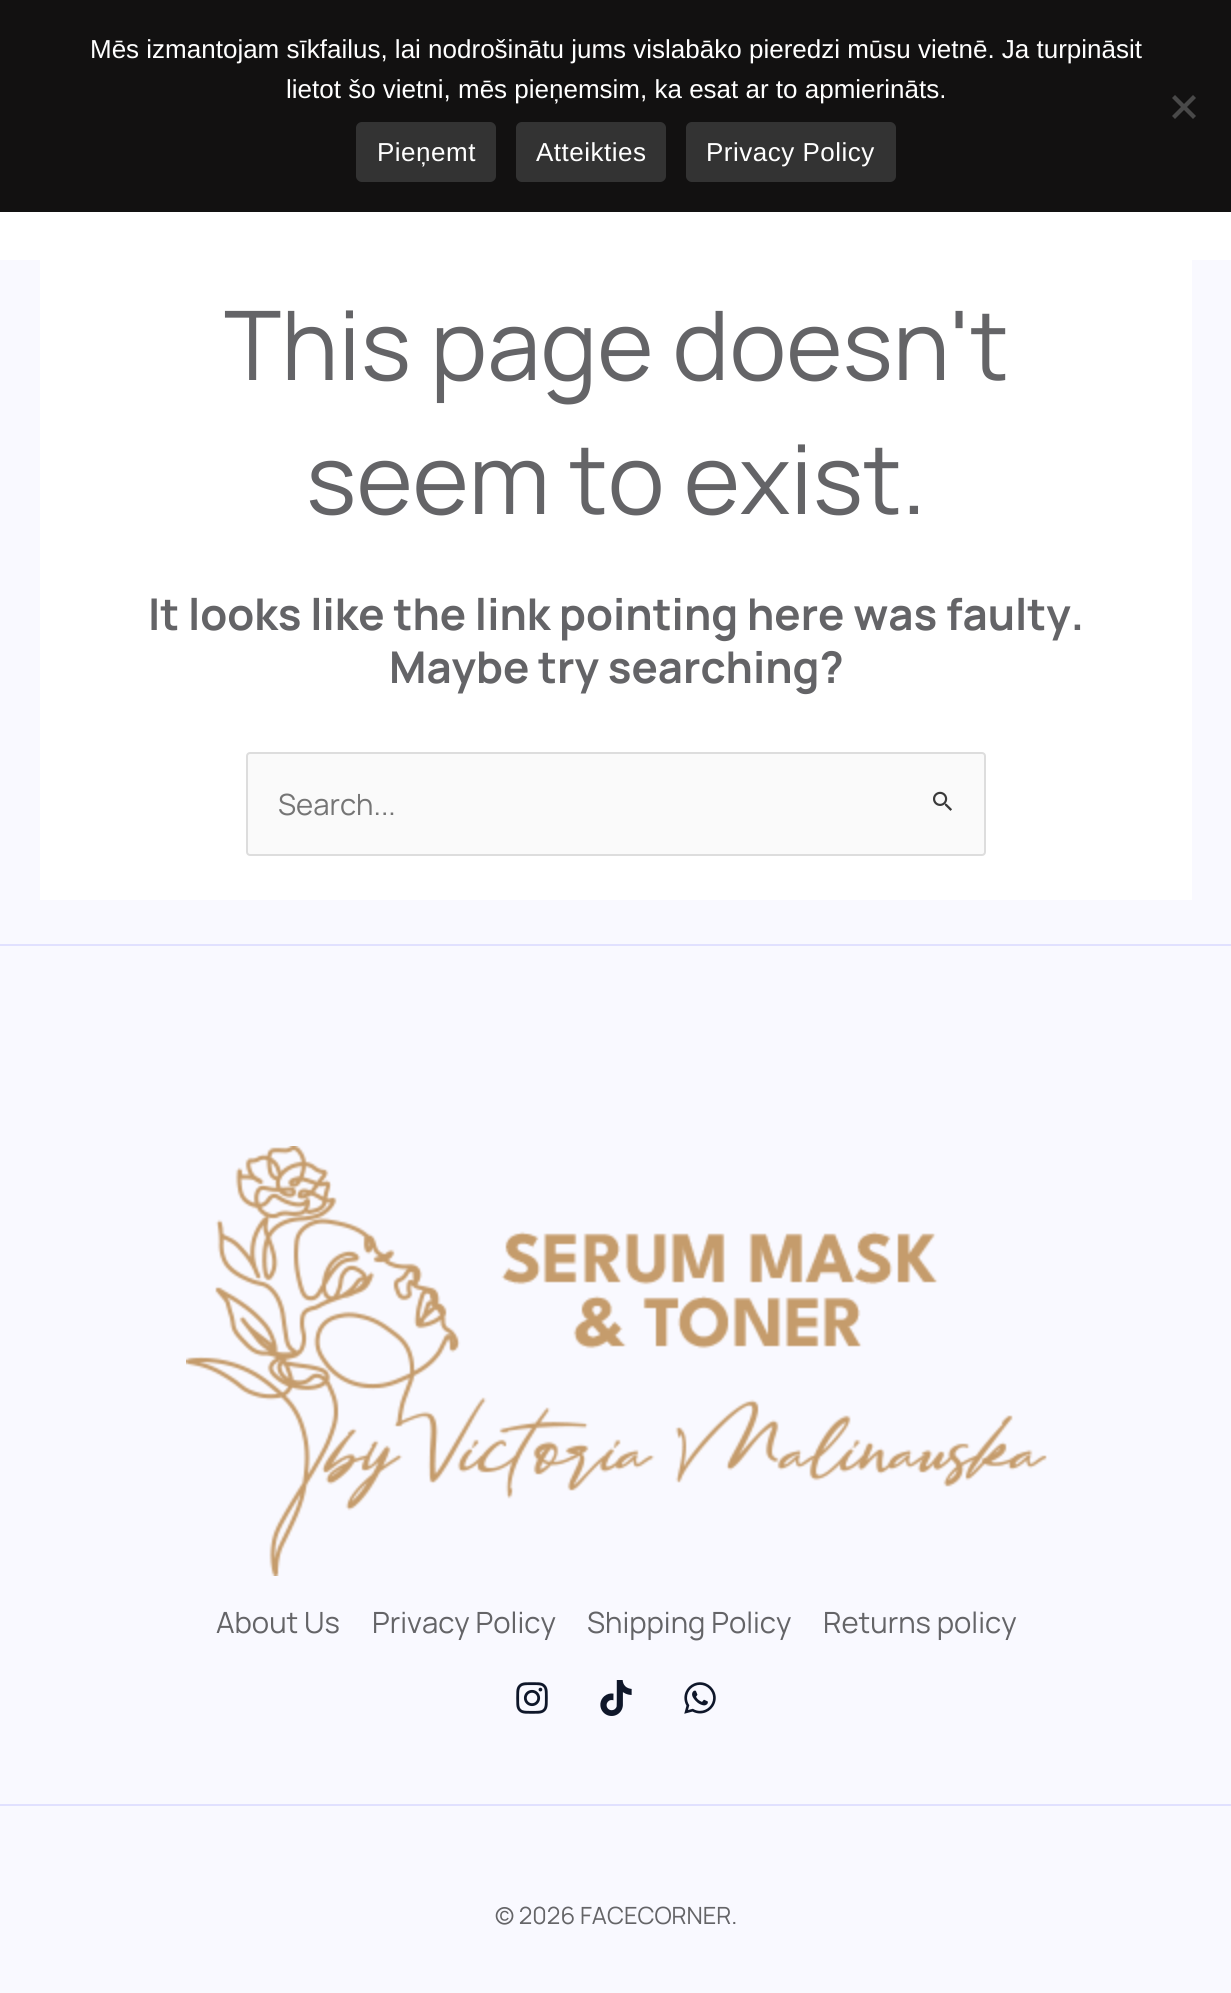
#include <cairo.h>
#include <math.h>
#include <stddef.h>


static void spaced_text(cairo_t *cr, double x, double y, const char *s, double letter, double word) {
    cairo_move_to(cr, x, y);
    while (*s) {
        char ch[5] = {0};
        int n = 0;
        do ch[n++] = *s++; while ((*s & 0xC0) == 0x80);
        cairo_show_text(cr, ch);
        cairo_rel_move_to(cr, letter + word * (*ch == ' '), 0);
    }
}

static void round_rect(cairo_t *cr, double x, double y, double w, double h, double r) {
    cairo_new_sub_path(cr);
    cairo_arc(cr, x + w - r, y + h - r, r, 0, M_PI / 2);
    cairo_arc(cr, x + r, y + h - r, r, M_PI / 2, M_PI);
    cairo_arc(cr, x + r, y + r, r, M_PI, 1.5 * M_PI);
    cairo_arc(cr, x + w - r, y + r, r, 1.5 * M_PI, 2 * M_PI);
    cairo_close_path(cr);
}

static void picture(cairo_t *cr, const char *path, double x, double y, double w, double h) {
    cairo_surface_t *image = cairo_image_surface_create_from_png(path);
    cairo_save(cr);
    cairo_set_source_surface(cr, image, x, y);
    cairo_rectangle(cr, x, y, w, h);
    cairo_fill(cr);
    cairo_restore(cr);
    cairo_surface_destroy(image);
}

int main(void) {
    cairo_surface_t *surface = cairo_image_surface_create(CAIRO_FORMAT_RGB24, 1231, 1993);
    cairo_t *cr = cairo_create(surface);
    cairo_font_options_t *options = cairo_font_options_create();
    cairo_font_options_set_hint_metrics(options, CAIRO_HINT_METRICS_OFF);
    cairo_font_options_set_hint_style(options, CAIRO_HINT_STYLE_NONE);
    cairo_set_font_options(cr, options);
    cairo_set_miter_limit(cr, 4);
    cairo_set_source_rgb(cr, 0.973, 0.973, 1);
    cairo_paint(cr);
    cairo_set_source_rgb(cr, 0.071, 0.067, 0.067);
    cairo_rectangle(cr, 0, 0, 1231, 212);
    cairo_fill(cr);
    cairo_select_font_face(cr, "Liberation Sans", CAIRO_FONT_SLANT_NORMAL, CAIRO_FONT_WEIGHT_NORMAL);
    cairo_set_font_size(cr, 26);
    cairo_set_source_rgb(cr, 1, 1, 1);
    cairo_move_to(cr, 90, 58);
    cairo_show_text(cr, "Mēs izmantojam sīkfailus, lai nodrošinātu jums vislabāko pieredzi mūsu vietnē. Ja turpināsit");
    cairo_move_to(cr, 286, 98);
    cairo_show_text(cr, "lietot šo vietni, mēs pieņemsim, ka esat ar to apmierināts.");
    cairo_set_source_rgb(cr, 0.286, 0.286, 0.286);
    cairo_new_path(cr);
    cairo_move_to(cr, 1193, 95);
    cairo_line_to(cr, 1196, 98);
    cairo_line_to(cr, 1175, 119);
    cairo_line_to(cr, 1172, 116);
    cairo_close_path(cr);
    cairo_fill(cr);
    cairo_new_path(cr);
    cairo_move_to(cr, 1172, 98);
    cairo_line_to(cr, 1175, 95);
    cairo_line_to(cr, 1196, 116);
    cairo_line_to(cr, 1193, 119);
    cairo_close_path(cr);
    cairo_fill(cr);
    cairo_set_source_rgb(cr, 0.2, 0.2, 0.2);
    round_rect(cr, 356, 122, 140, 60, 6);
    cairo_fill(cr);
    cairo_set_source_rgb(cr, 1, 1, 1);
    spaced_text(cr, 377, 161, "Pieņemt", 0.5, 0);
    cairo_set_source_rgb(cr, 0.2, 0.2, 0.2);
    round_rect(cr, 516, 122, 150, 60, 6);
    cairo_fill(cr);
    cairo_set_source_rgb(cr, 1, 1, 1);
    spaced_text(cr, 536, 161, "Atteikties", 0.5, 0);
    cairo_set_source_rgb(cr, 0.2, 0.2, 0.2);
    round_rect(cr, 686, 122, 210, 60, 6);
    cairo_fill(cr);
    cairo_set_source_rgb(cr, 1, 1, 1);
    spaced_text(cr, 706, 161, "Privacy Policy", 0.5, 0);
    cairo_rectangle(cr, 0, 212, 1231, 48);
    cairo_fill(cr);
    cairo_rectangle(cr, 40, 260, 1152, 640);
    cairo_fill(cr);
    cairo_select_font_face(cr, "Manrope", CAIRO_FONT_SLANT_NORMAL, CAIRO_FONT_WEIGHT_NORMAL);
    cairo_set_font_size(cr, 96);
    cairo_set_source_rgb(cr, 0.392, 0.392, 0.404);
    cairo_move_to(cr, 224, 380);
    cairo_show_text(cr, "This page doesn't");
    cairo_move_to(cr, 306, 514);
    cairo_show_text(cr, "seem to exist.");
    cairo_select_font_face(cr, "Manrope", CAIRO_FONT_SLANT_NORMAL, CAIRO_FONT_WEIGHT_BOLD);
    cairo_set_font_size(cr, 43.75);
    cairo_move_to(cr, 148, 630);
    cairo_show_text(cr, "It looks like the link pointing here was faulty.");
    cairo_move_to(cr, 389, 683);
    cairo_show_text(cr, "Maybe try searching?");
    cairo_set_source_rgb(cr, 0.98, 0.98, 0.98);
    round_rect(cr, 247, 753, 738, 102, 3);
    cairo_fill_preserve(cr);
    cairo_set_source_rgb(cr, 0.867, 0.867, 0.867);
    cairo_stroke(cr);
    cairo_select_font_face(cr, "Manrope", CAIRO_FONT_SLANT_NORMAL, CAIRO_FONT_WEIGHT_NORMAL);
    cairo_set_font_size(cr, 29.25);
    cairo_set_source_rgb(cr, 0.459, 0.459, 0.459);
    cairo_move_to(cr, 278, 815);
    cairo_show_text(cr, "Search...");
    picture(cr, "img1.png", 933, 791, 19, 20);
    cairo_set_source_rgb(cr, 0.882, 0.882, 1);
    cairo_rectangle(cr, 0, 944, 1231, 2);
    cairo_fill(cr);
    picture(cr, "img2.png", 186, 1146, 861, 430);
    cairo_set_source_rgb(cr, 0.392, 0.392, 0.404);
    cairo_move_to(cr, 216, 1633);
    cairo_show_text(cr, "About Us");
    cairo_move_to(cr, 372, 1633);
    cairo_show_text(cr, "Privacy Policy");
    cairo_move_to(cr, 587, 1633);
    cairo_show_text(cr, "Shipping Policy");
    cairo_move_to(cr, 823, 1633);
    cairo_show_text(cr, "Returns policy");
    picture(cr, "img3.png", 516, 1682, 32, 32);
    picture(cr, "img4.png", 600, 1680, 32, 36);
    picture(cr, "img5.png", 684, 1682, 32, 32);
    cairo_set_source_rgb(cr, 0.882, 0.882, 1);
    cairo_rectangle(cr, 0, 1804, 1231, 2);
    cairo_fill(cr);
    cairo_set_font_size(cr, 23.75);
    cairo_set_source_rgb(cr, 0.392, 0.392, 0.404);
    cairo_move_to(cr, 495, 1924);
    cairo_show_text(cr, "© 2026 FACECORNER.");
    cairo_surface_write_to_png(surface, "page.png");
    cairo_font_options_destroy(options);
    cairo_destroy(cr);
    cairo_surface_destroy(surface);
    return 0;
}
